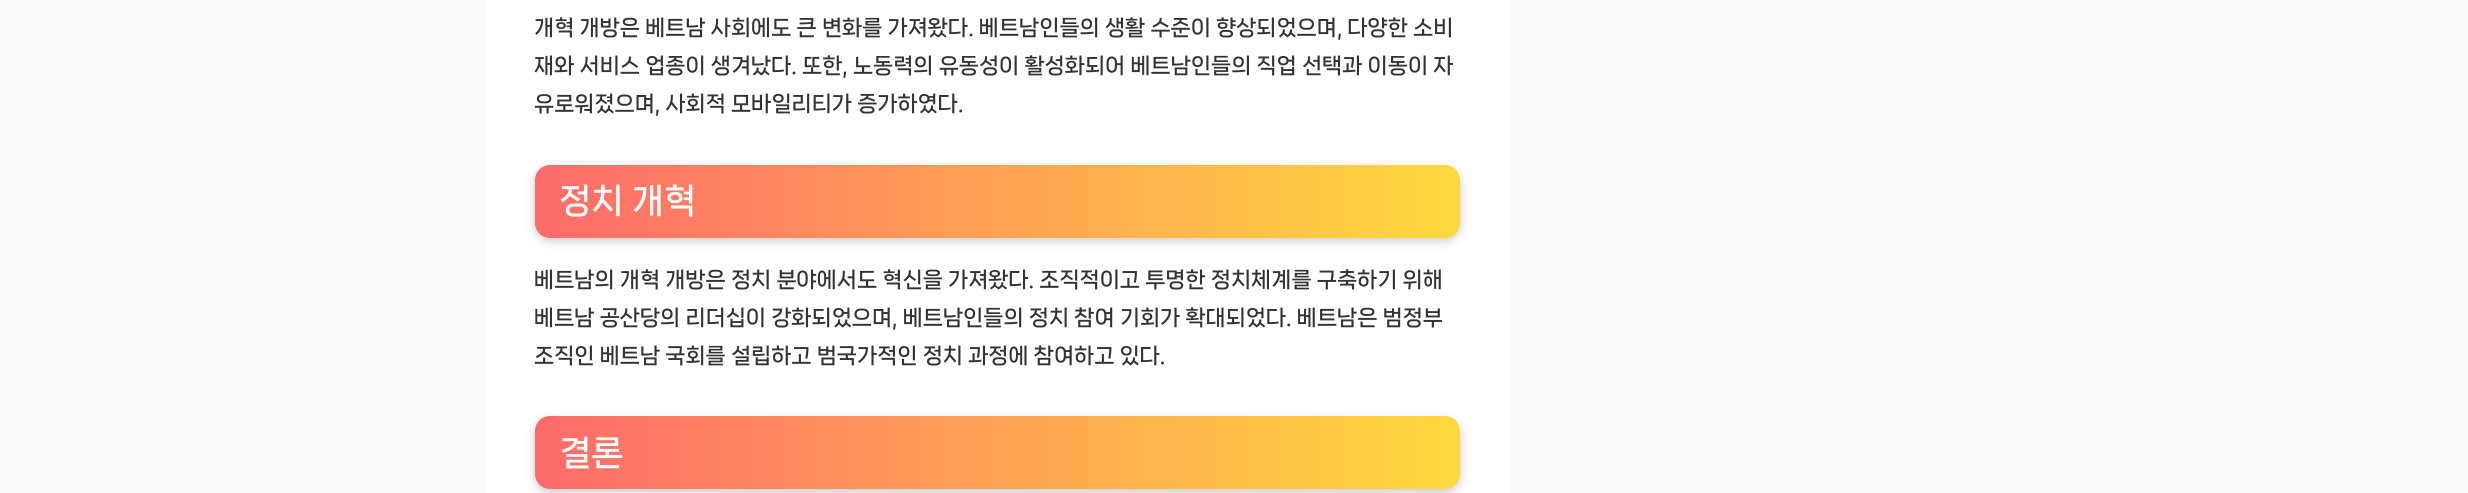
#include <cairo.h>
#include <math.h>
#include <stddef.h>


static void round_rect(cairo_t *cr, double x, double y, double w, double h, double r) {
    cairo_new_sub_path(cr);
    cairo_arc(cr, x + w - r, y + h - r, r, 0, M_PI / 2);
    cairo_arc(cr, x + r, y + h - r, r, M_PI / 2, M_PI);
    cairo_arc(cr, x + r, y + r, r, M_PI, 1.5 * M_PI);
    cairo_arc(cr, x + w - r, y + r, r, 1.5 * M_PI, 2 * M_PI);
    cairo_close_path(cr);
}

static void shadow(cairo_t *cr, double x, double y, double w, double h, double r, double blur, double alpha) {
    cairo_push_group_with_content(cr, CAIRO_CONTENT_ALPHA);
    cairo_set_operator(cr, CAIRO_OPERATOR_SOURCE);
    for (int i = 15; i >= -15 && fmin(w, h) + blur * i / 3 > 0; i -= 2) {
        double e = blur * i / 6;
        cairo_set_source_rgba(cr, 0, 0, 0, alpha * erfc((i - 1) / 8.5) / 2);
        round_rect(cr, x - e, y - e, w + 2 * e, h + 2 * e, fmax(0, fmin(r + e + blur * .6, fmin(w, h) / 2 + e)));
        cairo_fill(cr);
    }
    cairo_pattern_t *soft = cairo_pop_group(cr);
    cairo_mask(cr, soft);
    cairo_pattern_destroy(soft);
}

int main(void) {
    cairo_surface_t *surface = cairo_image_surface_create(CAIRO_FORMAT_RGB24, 2468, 493);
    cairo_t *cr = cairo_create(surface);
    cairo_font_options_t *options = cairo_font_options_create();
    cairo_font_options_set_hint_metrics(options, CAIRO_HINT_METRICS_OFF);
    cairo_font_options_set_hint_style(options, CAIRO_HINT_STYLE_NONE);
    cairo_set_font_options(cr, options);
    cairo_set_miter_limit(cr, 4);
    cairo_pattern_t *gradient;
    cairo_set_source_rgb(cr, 0.969, 0.973, 0.976);
    cairo_paint(cr);
    cairo_set_source_rgb(cr, 1, 1, 1);
    cairo_rectangle(cr, 485, 0, 1025, 493);
    cairo_fill(cr);
    cairo_select_font_face(cr, "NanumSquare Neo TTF", CAIRO_FONT_SLANT_NORMAL, CAIRO_FONT_WEIGHT_BOLD);
    cairo_set_font_size(cr, 21.25);
    cairo_set_source_rgb(cr, 0.2, 0.2, 0.2);
    cairo_move_to(cr, 534, 34);
    cairo_show_text(cr, "개혁 개방은 베트남 사회에도 큰 변화를 가져왔다. 베트남인들의 생활 수준이 향상되었으며, 다양한 소비");
    cairo_move_to(cr, 534, 72);
    cairo_show_text(cr, "재와 서비스 업종이 생겨났다. 또한, 노동력의 유동성이 활성화되어 베트남인들의 직업 선택과 이동이 자");
    cairo_move_to(cr, 534, 110);
    cairo_show_text(cr, "유로워졌으며, 사회적 모바일리티가 증가하였다.");
    cairo_set_source_rgb(cr, 0, 0, 0);
    shadow(cr, 535, 169, 925, 72, 15, 5, 0.2);
    gradient = cairo_pattern_create_linear(535, 201, 1460, 201);
    cairo_pattern_add_color_stop_rgba(gradient, 0, 1, 0.42, 0.42, 1);
    cairo_pattern_add_color_stop_rgba(gradient, 1, 1, 0.851, 0.239, 1);
    cairo_set_source(cr, gradient);
    cairo_pattern_destroy(gradient);
    round_rect(cr, 535, 165, 925, 73, 15);
    cairo_fill(cr);
    cairo_set_font_size(cr, 34);
    cairo_set_source_rgb(cr, 1, 1, 1);
    cairo_move_to(cr, 559, 211);
    cairo_show_text(cr, "정치 개혁");
    cairo_set_font_size(cr, 21.25);
    cairo_set_source_rgb(cr, 0.2, 0.2, 0.2);
    cairo_move_to(cr, 534, 286);
    cairo_show_text(cr, "베트남의 개혁 개방은 정치 분야에서도 혁신을 가져왔다. 조직적이고 투명한 정치체계를 구축하기 위해");
    cairo_move_to(cr, 534, 324);
    cairo_show_text(cr, "베트남 공산당의 리더십이 강화되었으며, 베트남인들의 정치 참여 기회가 확대되었다. 베트남은 범정부");
    cairo_move_to(cr, 534, 362);
    cairo_show_text(cr, "조직인 베트남 국회를 설립하고 범국가적인 정치 과정에 참여하고 있다.");
    cairo_set_source_rgb(cr, 0, 0, 0);
    shadow(cr, 535, 420, 925, 73, 15, 5, 0.2);
    gradient = cairo_pattern_create_linear(535, 453, 1460, 453);
    cairo_pattern_add_color_stop_rgba(gradient, 0, 1, 0.42, 0.42, 1);
    cairo_pattern_add_color_stop_rgba(gradient, 1, 1, 0.851, 0.239, 1);
    cairo_set_source(cr, gradient);
    cairo_pattern_destroy(gradient);
    round_rect(cr, 535, 416, 925, 73, 15);
    cairo_fill(cr);
    cairo_set_font_size(cr, 34);
    cairo_set_source_rgb(cr, 1, 1, 1);
    cairo_move_to(cr, 559, 463);
    cairo_show_text(cr, "결론");
    cairo_surface_write_to_png(surface, "page.png");
    cairo_font_options_destroy(options);
    cairo_destroy(cr);
    cairo_surface_destroy(surface);
    return 0;
}
